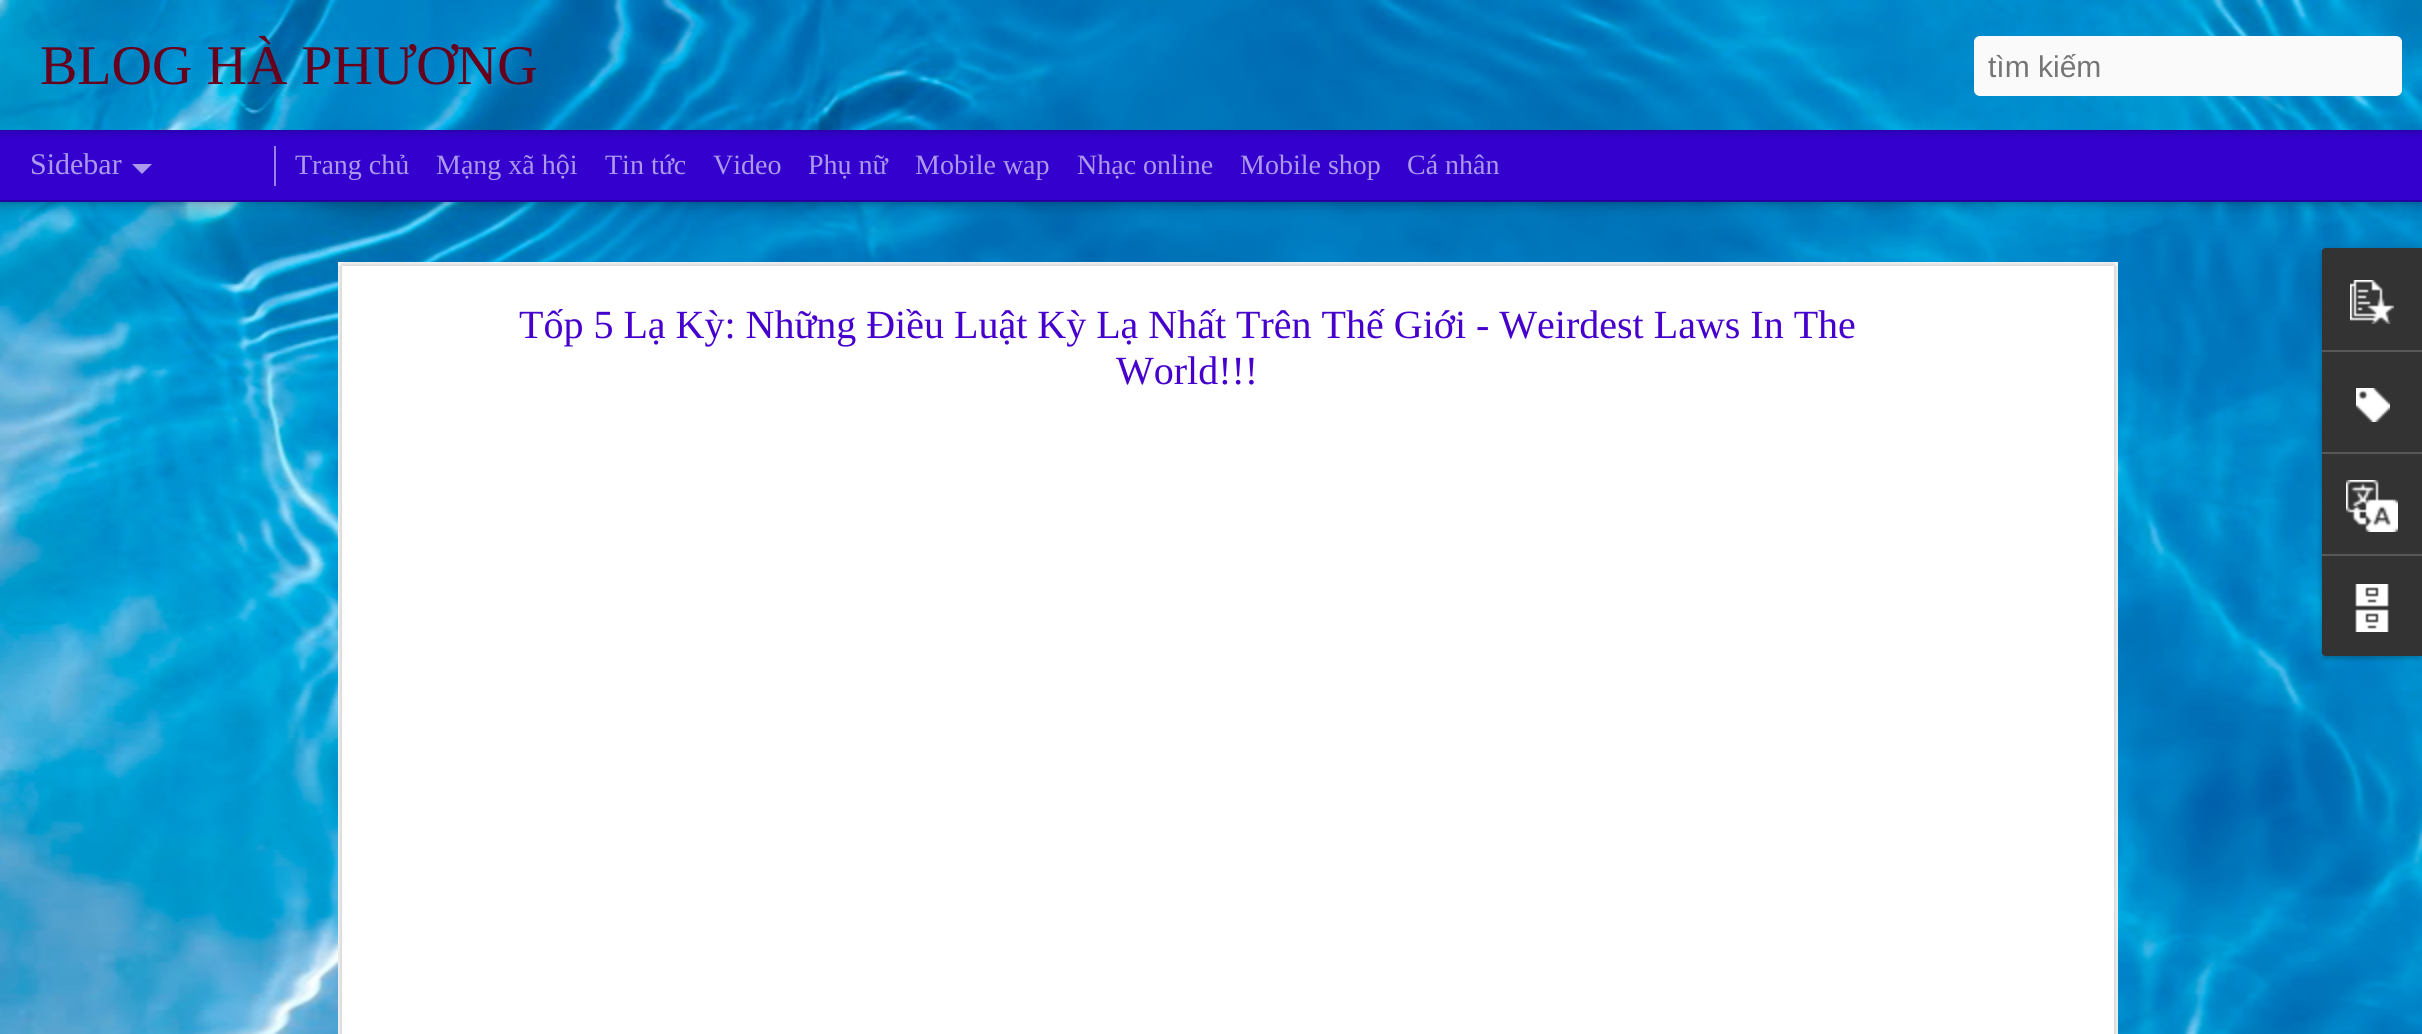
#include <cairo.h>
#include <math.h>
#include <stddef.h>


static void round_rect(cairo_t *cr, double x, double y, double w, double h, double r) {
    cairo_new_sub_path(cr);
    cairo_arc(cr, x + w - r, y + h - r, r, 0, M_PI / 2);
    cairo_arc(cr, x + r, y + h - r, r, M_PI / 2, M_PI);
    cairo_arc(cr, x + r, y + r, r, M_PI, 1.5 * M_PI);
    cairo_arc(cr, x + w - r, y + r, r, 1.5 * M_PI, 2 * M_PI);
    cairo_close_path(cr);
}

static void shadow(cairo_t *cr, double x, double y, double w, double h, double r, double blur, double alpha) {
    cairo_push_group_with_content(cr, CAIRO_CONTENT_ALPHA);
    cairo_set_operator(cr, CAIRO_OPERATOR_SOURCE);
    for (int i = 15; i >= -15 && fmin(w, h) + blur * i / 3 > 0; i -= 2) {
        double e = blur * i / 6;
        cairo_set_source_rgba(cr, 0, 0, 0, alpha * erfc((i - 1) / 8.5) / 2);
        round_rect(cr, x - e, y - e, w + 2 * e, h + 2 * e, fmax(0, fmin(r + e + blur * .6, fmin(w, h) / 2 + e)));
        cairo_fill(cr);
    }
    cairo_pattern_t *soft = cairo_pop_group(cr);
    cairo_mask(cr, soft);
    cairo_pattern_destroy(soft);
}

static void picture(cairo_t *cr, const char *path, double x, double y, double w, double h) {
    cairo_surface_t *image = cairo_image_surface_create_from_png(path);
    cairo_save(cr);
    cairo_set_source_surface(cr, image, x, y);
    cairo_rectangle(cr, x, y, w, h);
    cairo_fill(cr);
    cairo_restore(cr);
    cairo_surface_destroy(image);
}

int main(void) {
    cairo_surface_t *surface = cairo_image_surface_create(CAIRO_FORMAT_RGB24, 2422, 1034);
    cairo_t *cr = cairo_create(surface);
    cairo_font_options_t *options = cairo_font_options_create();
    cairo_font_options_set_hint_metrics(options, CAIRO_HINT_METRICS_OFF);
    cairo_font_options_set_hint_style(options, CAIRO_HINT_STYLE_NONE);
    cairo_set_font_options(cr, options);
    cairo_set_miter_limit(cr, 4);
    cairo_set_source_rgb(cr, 0.2, 0, 0.808);
    cairo_paint(cr);
    picture(cr, "img2.png", 0, 202, 2422, 832);
    cairo_set_source_rgb(cr, 0, 0, 0);
    shadow(cr, 0, 130, 2422, 70, 0, 8, 0.5);
    cairo_set_source_rgb(cr, 0.2, 0, 0.808);
    cairo_rectangle(cr, 0, 130, 2422, 70);
    cairo_fill(cr);
    cairo_set_source_rgb(cr, 0, 0, 0);
    shadow(cr, 0, 0, 2422, 130, 0, 5, 0.3);
    picture(cr, "img1.png", 0, 0, 2422, 130);
    cairo_select_font_face(cr, "Liberation Serif", CAIRO_FONT_SLANT_NORMAL, CAIRO_FONT_WEIGHT_NORMAL);
    cairo_set_font_size(cr, 56);
    cairo_set_source_rgb(cr, 0.4, 0, 0.11);
    cairo_move_to(cr, 40, 84);
    cairo_show_text(cr, "BLOG HÀ PHƯƠNG");
    cairo_set_source_rgb(cr, 0.98, 0.98, 0.98);
    round_rect(cr, 1974, 36, 428, 60, 6);
    cairo_fill(cr);
    cairo_select_font_face(cr, "Liberation Sans", CAIRO_FONT_SLANT_NORMAL, CAIRO_FONT_WEIGHT_NORMAL);
    cairo_set_font_size(cr, 30);
    cairo_set_source_rgb(cr, 0.459, 0.459, 0.459);
    cairo_move_to(cr, 1988, 77);
    cairo_show_text(cr, "tìm kiếm");
    cairo_select_font_face(cr, "Liberation Serif", CAIRO_FONT_SLANT_NORMAL, CAIRO_FONT_WEIGHT_NORMAL);
    cairo_set_source_rgb(cr, 0.678, 0.6, 0.922);
    cairo_move_to(cr, 30, 174);
    cairo_show_text(cr, "Sidebar");
    cairo_new_path(cr);
    cairo_move_to(cr, 132, 164);
    cairo_line_to(cr, 152, 164);
    cairo_line_to(cr, 142, 174);
    cairo_close_path(cr);
    cairo_fill(cr);
    cairo_set_source_rgb(cr, 0.6, 0.502, 0.906);
    cairo_rectangle(cr, 274, 146, 2, 40);
    cairo_fill(cr);
    cairo_set_font_size(cr, 28);
    cairo_set_source_rgb(cr, 0.678, 0.6, 0.922);
    cairo_move_to(cr, 295, 174);
    cairo_show_text(cr, "Trang chủ");
    cairo_move_to(cr, 436, 174);
    cairo_show_text(cr, "Mạng xã hội");
    cairo_move_to(cr, 605, 174);
    cairo_show_text(cr, "Tin tức");
    cairo_move_to(cr, 713, 174);
    cairo_show_text(cr, "Video");
    cairo_move_to(cr, 808, 174);
    cairo_show_text(cr, "Phụ nữ");
    cairo_move_to(cr, 915, 174);
    cairo_show_text(cr, "Mobile wap");
    cairo_move_to(cr, 1077, 174);
    cairo_show_text(cr, "Nhạc online");
    cairo_move_to(cr, 1240, 174);
    cairo_show_text(cr, "Mobile shop");
    cairo_move_to(cr, 1407, 174);
    cairo_show_text(cr, "Cá nhân");
    cairo_set_source_rgb(cr, 1, 1, 1);
    cairo_rectangle(cr, 338, 262, 1780, 772);
    cairo_fill(cr);
    picture(cr, "img3.png", 338, 262, 1780, 772);
    cairo_set_font_size(cr, 40);
    cairo_set_source_rgb(cr, 0.275, 0, 0.808);
    cairo_move_to(cr, 519, 338);
    cairo_show_text(cr, "Tốp 5 Lạ Kỳ: Những Điều Luật Kỳ Lạ Nhất Trên Thế Giới - Weirdest Laws In The");
    cairo_move_to(cr, 1116, 384);
    cairo_show_text(cr, "World!!!");
    cairo_set_source_rgb(cr, 0, 0, 0);
    shadow(cr, 2322, 250, 100, 408, 4, 3, 0.3);
    cairo_set_source_rgb(cr, 0.2, 0.2, 0.2);
    cairo_new_path(cr);
    cairo_move_to(cr, 2326, 248);
    cairo_line_to(cr, 2422, 248);
    cairo_line_to(cr, 2422, 656);
    cairo_line_to(cr, 2326, 656);
    cairo_curve_to(cr, 2324, 656, 2322, 654, 2322, 652);
    cairo_line_to(cr, 2322, 252);
    cairo_curve_to(cr, 2322, 250, 2324, 248, 2326, 248);
    cairo_close_path(cr);
    cairo_fill(cr);
    cairo_new_path(cr);
    cairo_move_to(cr, 2326, 248);
    cairo_line_to(cr, 2422, 248);
    cairo_line_to(cr, 2422, 350);
    cairo_line_to(cr, 2322, 350);
    cairo_line_to(cr, 2322, 252);
    cairo_curve_to(cr, 2322, 250, 2324, 248, 2326, 248);
    cairo_close_path(cr);
    cairo_fill(cr);
    picture(cr, "img4.png", 2350, 280, 44, 44);
    cairo_set_source_rgb(cr, 0.345, 0.345, 0.345);
    cairo_rectangle(cr, 2322, 350, 100, 2);
    cairo_fill(cr);
    picture(cr, "img5.png", 2356, 388, 34, 34);
    cairo_rectangle(cr, 2322, 452, 100, 2);
    cairo_fill(cr);
    picture(cr, "img6.png", 2346, 480, 52, 52);
    cairo_set_source_rgb(cr, 0.2, 0.2, 0.2);
    cairo_new_path(cr);
    cairo_move_to(cr, 2322, 554);
    cairo_line_to(cr, 2422, 554);
    cairo_line_to(cr, 2422, 656);
    cairo_line_to(cr, 2326, 656);
    cairo_curve_to(cr, 2324, 656, 2322, 654, 2322, 652);
    cairo_close_path(cr);
    cairo_fill(cr);
    cairo_set_source_rgb(cr, 0.345, 0.345, 0.345);
    cairo_rectangle(cr, 2322, 554, 100, 2);
    cairo_fill(cr);
    picture(cr, "img7.png", 2355, 584, 34, 48);
    cairo_surface_write_to_png(surface, "page.png");
    cairo_font_options_destroy(options);
    cairo_destroy(cr);
    cairo_surface_destroy(surface);
    return 0;
}
